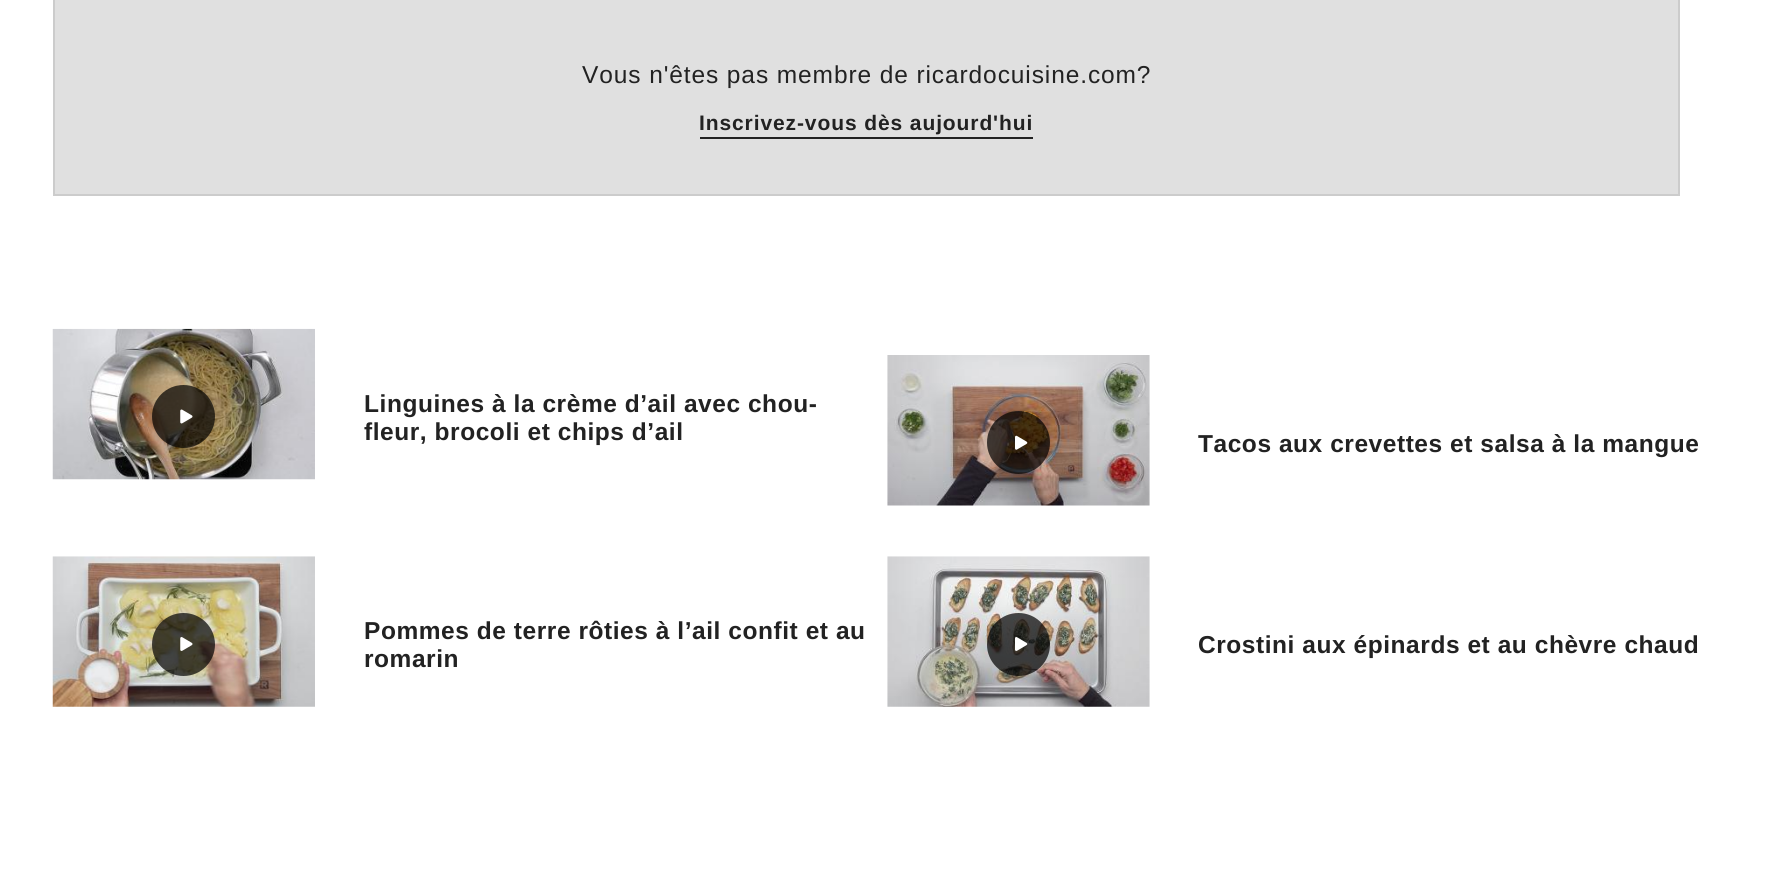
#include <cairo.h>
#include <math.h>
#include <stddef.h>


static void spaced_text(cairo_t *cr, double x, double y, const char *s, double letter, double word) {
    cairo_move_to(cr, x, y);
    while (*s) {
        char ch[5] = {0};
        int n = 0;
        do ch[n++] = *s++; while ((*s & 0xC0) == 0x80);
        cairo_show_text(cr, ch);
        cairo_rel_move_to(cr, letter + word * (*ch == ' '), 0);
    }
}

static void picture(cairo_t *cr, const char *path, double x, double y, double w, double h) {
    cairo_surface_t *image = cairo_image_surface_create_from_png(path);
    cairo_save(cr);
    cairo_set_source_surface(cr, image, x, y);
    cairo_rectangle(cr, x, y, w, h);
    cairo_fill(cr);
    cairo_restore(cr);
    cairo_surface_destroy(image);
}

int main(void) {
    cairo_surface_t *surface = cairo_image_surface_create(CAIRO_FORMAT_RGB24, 1772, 880);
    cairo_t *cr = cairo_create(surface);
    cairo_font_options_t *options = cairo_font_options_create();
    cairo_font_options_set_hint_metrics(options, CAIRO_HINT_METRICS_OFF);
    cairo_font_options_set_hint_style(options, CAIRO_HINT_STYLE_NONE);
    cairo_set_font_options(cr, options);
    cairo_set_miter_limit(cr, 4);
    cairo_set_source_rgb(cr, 1, 1, 1);
    cairo_paint(cr);
    cairo_set_source_rgb(cr, 0.878, 0.878, 0.878);
    cairo_rectangle(cr, 54, -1, 1625, 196);
    cairo_fill_preserve(cr);
    cairo_set_source_rgb(cr, 0.8, 0.8, 0.8);
    cairo_stroke(cr);
    cairo_select_font_face(cr, "Liberation Sans", CAIRO_FONT_SLANT_NORMAL, CAIRO_FONT_WEIGHT_NORMAL);
    cairo_set_font_size(cr, 24.5);
    cairo_set_source_rgb(cr, 0.133, 0.133, 0.133);
    spaced_text(cr, 582, 83, "Vous n'êtes pas membre de ricardocuisine.com?", 0.9, 0);
    cairo_select_font_face(cr, "Liberation Sans", CAIRO_FONT_SLANT_NORMAL, CAIRO_FONT_WEIGHT_BOLD);
    cairo_set_font_size(cr, 21);
    spaced_text(cr, 699, 130, "Inscrivez-vous dès aujourd'hui", 0.9, 0);
    cairo_rectangle(cr, 700, 137, 333, 2);
    cairo_fill(cr);
    picture(cr, "img1.png", 52, 328, 263, 152);
    cairo_set_source_rgba(cr, 0, 0, 0, 0.7);
    cairo_arc(cr, 183.5, 416.5, 31.5, 0, 2 * M_PI);
    cairo_fill(cr);
    picture(cr, "img2.png", 180, 409, 13, 15);
    cairo_set_font_size(cr, 24.5);
    cairo_set_source_rgb(cr, 0.133, 0.133, 0.133);
    spaced_text(cr, 364, 412, "Linguines à la crème d’ail avec chou-", 0.55, 0);
    spaced_text(cr, 364, 440, "fleur, brocoli et chips d’ail", 0.55, 0);
    picture(cr, "img3.png", 887, 355, 263, 151);
    cairo_set_source_rgba(cr, 0, 0, 0, 0.7);
    cairo_arc(cr, 1018.5, 442.5, 31.5, 0, 2 * M_PI);
    cairo_fill(cr);
    picture(cr, "img4.png", 1015, 435, 13, 15);
    cairo_set_source_rgb(cr, 0.133, 0.133, 0.133);
    spaced_text(cr, 1198, 452, "Tacos aux crevettes et salsa à la mangue", 0.55, 0);
    picture(cr, "img5.png", 52, 556, 263, 151);
    cairo_set_source_rgba(cr, 0, 0, 0, 0.7);
    cairo_arc(cr, 183.5, 644.5, 31.5, 0, 2 * M_PI);
    cairo_fill(cr);
    picture(cr, "img6.png", 180, 637, 13, 14);
    cairo_set_source_rgb(cr, 0.133, 0.133, 0.133);
    spaced_text(cr, 364, 639, "Pommes de terre rôties à l’ail confit et au", 0.55, 0);
    spaced_text(cr, 364, 667, "romarin", 0.55, 0);
    picture(cr, "img7.png", 887, 556, 263, 151);
    cairo_set_source_rgba(cr, 0, 0, 0, 0.7);
    cairo_arc(cr, 1018.5, 644.5, 31.5, 0, 2 * M_PI);
    cairo_fill(cr);
    picture(cr, "img8.png", 1015, 637, 13, 14);
    cairo_set_source_rgb(cr, 0.133, 0.133, 0.133);
    spaced_text(cr, 1198, 653, "Crostini aux épinards et au chèvre chaud", 0.55, 0);
    cairo_surface_write_to_png(surface, "page.png");
    cairo_font_options_destroy(options);
    cairo_destroy(cr);
    cairo_surface_destroy(surface);
    return 0;
}
